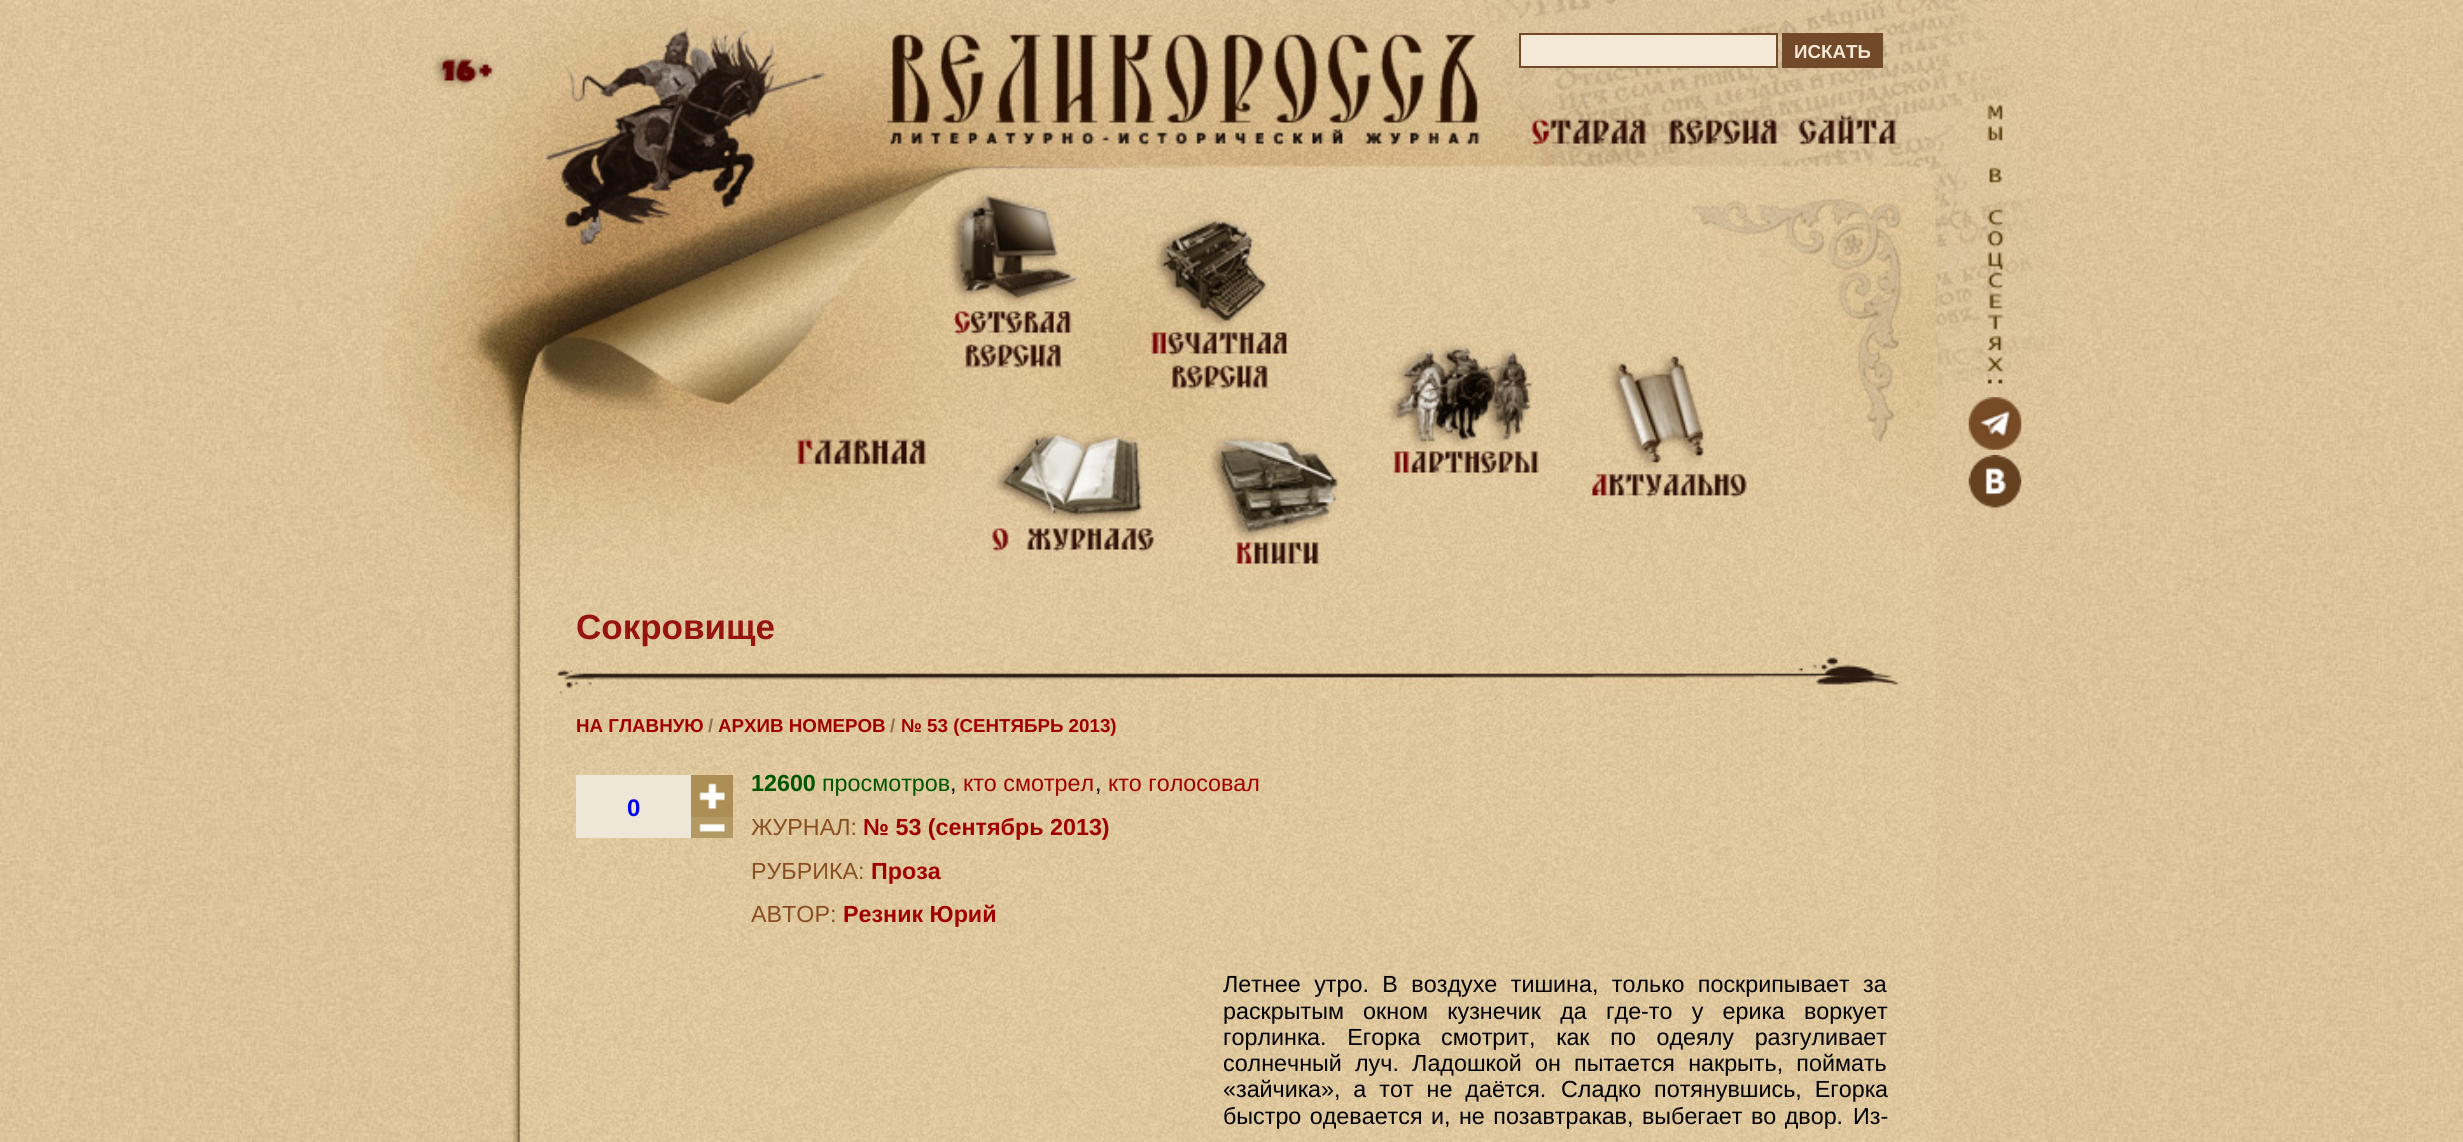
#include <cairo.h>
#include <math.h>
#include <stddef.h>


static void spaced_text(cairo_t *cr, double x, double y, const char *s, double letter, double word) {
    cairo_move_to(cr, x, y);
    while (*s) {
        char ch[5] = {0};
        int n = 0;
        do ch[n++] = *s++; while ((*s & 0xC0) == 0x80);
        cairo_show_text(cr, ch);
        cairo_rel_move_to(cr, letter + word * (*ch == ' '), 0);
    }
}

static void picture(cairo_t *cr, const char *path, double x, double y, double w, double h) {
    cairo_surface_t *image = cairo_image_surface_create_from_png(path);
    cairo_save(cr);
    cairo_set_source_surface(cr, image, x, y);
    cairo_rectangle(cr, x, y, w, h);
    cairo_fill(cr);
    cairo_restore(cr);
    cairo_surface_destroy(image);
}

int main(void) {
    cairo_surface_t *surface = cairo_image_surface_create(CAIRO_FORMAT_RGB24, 2463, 1142);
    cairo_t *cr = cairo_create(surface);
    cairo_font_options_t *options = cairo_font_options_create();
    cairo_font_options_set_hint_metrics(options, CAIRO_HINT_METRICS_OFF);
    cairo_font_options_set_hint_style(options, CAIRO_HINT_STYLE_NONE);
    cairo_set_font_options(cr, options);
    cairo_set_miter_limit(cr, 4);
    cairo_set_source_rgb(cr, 1, 1, 1);
    cairo_paint(cr);
    picture(cr, "img1.png", 0, 0, 2463, 1142);
    picture(cr, "img2.png", 383, 0, 1698, 21);
    picture(cr, "img3.png", 383, 21, 142, 557);
    picture(cr, "img4.png", 525, 21, 1385, 557);
    picture(cr, "img5.png", 538, 21, 304, 244);
    picture(cr, "img6.png", 875, 34, 614, 120);
    cairo_set_source_rgb(cr, 0.957, 0.914, 0.839);
    cairo_rectangle(cr, 1520, 34, 257, 33);
    cairo_fill_preserve(cr);
    cairo_set_source_rgb(cr, 0.451, 0.29, 0.161);
    cairo_stroke(cr);
    cairo_rectangle(cr, 1782, 33, 101, 35);
    cairo_fill(cr);
    cairo_select_font_face(cr, "Liberation Sans", CAIRO_FONT_SLANT_NORMAL, CAIRO_FONT_WEIGHT_BOLD);
    cairo_set_font_size(cr, 18.75);
    cairo_set_source_rgb(cr, 0.957, 0.914, 0.839);
    cairo_move_to(cr, 1794, 58);
    cairo_show_text(cr, "ИСКАТЬ");
    picture(cr, "img15.png", 1909, 21, 172, 557);
    picture(cr, "img7.png", 1519, 106, 391, 48);
    picture(cr, "img8.png", 939, 185, 144, 197);
    picture(cr, "img13.png", 978, 402, 189, 162);
    picture(cr, "img9.png", 1137, 210, 165, 193);
    picture(cr, "img10.png", 1379, 336, 173, 151);
    picture(cr, "img11.png", 1576, 345, 185, 164);
    picture(cr, "img12.png", 782, 423, 158, 57);
    picture(cr, "img20.png", 383, 598, 1698, 50);
    picture(cr, "img19.png", 383, 577, 1698, 22);
    picture(cr, "img14.png", 1207, 421, 141, 157);
    picture(cr, "img16.png", 1986, 104, 19, 280);
    picture(cr, "img17.png", 1968, 397, 54, 53);
    picture(cr, "img18.png", 1968, 455, 54, 53);
    cairo_set_font_size(cr, 35);
    cairo_set_source_rgb(cr, 0.592, 0.078, 0.078);
    cairo_move_to(cr, 576, 639);
    cairo_show_text(cr, "Сокровище");
    picture(cr, "img21.png", 383, 647, 1698, 53);
    picture(cr, "img22.png", 383, 700, 1698, 14);
    picture(cr, "img23.png", 383, 714, 1698, 21);
    cairo_set_font_size(cr, 18.75);
    cairo_set_source_rgb(cr, 0.631, 0, 0);
    cairo_move_to(cr, 576, 732);
    cairo_show_text(cr, "НА ГЛАВНУЮ");
    cairo_set_source_rgb(cr, 0.557, 0.443, 0.329);
    cairo_move_to(cr, 708, 732);
    cairo_show_text(cr, "/");
    cairo_set_source_rgb(cr, 0.631, 0, 0);
    cairo_move_to(cr, 718, 732);
    cairo_show_text(cr, "АРХИВ НОМЕРОВ");
    cairo_set_source_rgb(cr, 0.557, 0.443, 0.329);
    cairo_move_to(cr, 890, 732);
    cairo_show_text(cr, "/");
    picture(cr, "img24.png", 383, 735, 1698, 35);
    cairo_set_source_rgb(cr, 0.631, 0, 0);
    cairo_move_to(cr, 901, 732);
    cairo_show_text(cr, "№ 53 (СЕНТЯБРЬ 2013)");
    picture(cr, "img25.png", 383, 770, 1698, 372);
    cairo_set_source_rgb(cr, 0.933, 0.902, 0.843);
    cairo_rectangle(cr, 576, 775, 115, 63);
    cairo_fill(cr);
    cairo_set_font_size(cr, 24);
    cairo_set_source_rgb(cr, 0, 0, 0.933);
    cairo_move_to(cr, 627, 816);
    cairo_show_text(cr, "0");
    cairo_set_source_rgb(cr, 0.678, 0.561, 0.337);
    cairo_rectangle(cr, 691, 775, 42, 42);
    cairo_fill(cr);
    picture(cr, "img26.png", 699, 783, 26, 26);
    cairo_set_source_rgb(cr, 0.71, 0.6, 0.388);
    cairo_rectangle(cr, 691, 817, 42, 21);
    cairo_fill(cr);
    picture(cr, "img27.png", 699, 823, 26, 9);
    cairo_set_font_size(cr, 23.3);
    cairo_set_source_rgb(cr, 0, 0.333, 0);
    cairo_move_to(cr, 751, 791);
    cairo_show_text(cr, "12600");
    cairo_select_font_face(cr, "Liberation Sans", CAIRO_FONT_SLANT_NORMAL, CAIRO_FONT_WEIGHT_NORMAL);
    cairo_move_to(cr, 822, 791);
    cairo_show_text(cr, "просмотров");
    cairo_set_source_rgb(cr, 0, 0, 0);
    cairo_move_to(cr, 950, 791);
    cairo_show_text(cr, ",");
    cairo_set_source_rgb(cr, 0.631, 0, 0);
    cairo_move_to(cr, 963, 791);
    cairo_show_text(cr, "кто смотрел");
    cairo_set_source_rgb(cr, 0, 0, 0);
    cairo_move_to(cr, 1095, 791);
    cairo_show_text(cr, ",");
    cairo_set_source_rgb(cr, 0.631, 0, 0);
    cairo_move_to(cr, 1108, 791);
    cairo_show_text(cr, "кто голосовал");
    cairo_set_source_rgb(cr, 0.537, 0.306, 0.133);
    cairo_move_to(cr, 751, 835);
    cairo_show_text(cr, "ЖУРНАЛ:");
    cairo_select_font_face(cr, "Liberation Sans", CAIRO_FONT_SLANT_NORMAL, CAIRO_FONT_WEIGHT_BOLD);
    cairo_set_source_rgb(cr, 0.631, 0, 0);
    cairo_move_to(cr, 863, 835);
    cairo_show_text(cr, "№ 53 (сентябрь 2013)");
    cairo_select_font_face(cr, "Liberation Sans", CAIRO_FONT_SLANT_NORMAL, CAIRO_FONT_WEIGHT_NORMAL);
    cairo_set_source_rgb(cr, 0.537, 0.306, 0.133);
    cairo_move_to(cr, 751, 879);
    cairo_show_text(cr, "РУБРИКА:");
    cairo_select_font_face(cr, "Liberation Sans", CAIRO_FONT_SLANT_NORMAL, CAIRO_FONT_WEIGHT_BOLD);
    cairo_set_source_rgb(cr, 0.631, 0, 0);
    cairo_move_to(cr, 871, 879);
    cairo_show_text(cr, "Проза");
    cairo_select_font_face(cr, "Liberation Sans", CAIRO_FONT_SLANT_NORMAL, CAIRO_FONT_WEIGHT_NORMAL);
    cairo_set_source_rgb(cr, 0.537, 0.306, 0.133);
    cairo_move_to(cr, 751, 922);
    cairo_show_text(cr, "АВТОР:");
    cairo_select_font_face(cr, "Liberation Sans", CAIRO_FONT_SLANT_NORMAL, CAIRO_FONT_WEIGHT_BOLD);
    cairo_set_source_rgb(cr, 0.631, 0, 0);
    cairo_move_to(cr, 843, 922);
    cairo_show_text(cr, "Резник Юрий");
    cairo_select_font_face(cr, "Liberation Sans", CAIRO_FONT_SLANT_NORMAL, CAIRO_FONT_WEIGHT_NORMAL);
    cairo_set_source_rgb(cr, 0, 0, 0);
    spaced_text(cr, 1223, 992, "Летнее утро. В воздухе тишина, только поскрипывает за", 0, 7);
    spaced_text(cr, 1223, 1019, "раскрытым окном кузнечик да где-то у ерика воркует", 0, 12.75);
    spaced_text(cr, 1223, 1045, "горлинка. Егорка смотрит, как по одеялу разгуливает", 0, 14.25);
    spaced_text(cr, 1223, 1071, "солнечный луч. Ладошкой он пытается накрыть, поймать", 0, 6.75);
    spaced_text(cr, 1223, 1097, "«зайчика», а тот не даётся.", 0, 6.5);
    spaced_text(cr, 1561, 1097, "Сладко потянувшись, Егорка", 0, 6.5);
    spaced_text(cr, 1223, 1124, "быстро одевается и, не позавтракав, выбегает во двор.", 0, 2);
    cairo_move_to(cr, 1853, 1124);
    cairo_show_text(cr, "Из-");
    cairo_surface_write_to_png(surface, "page.png");
    cairo_font_options_destroy(options);
    cairo_destroy(cr);
    cairo_surface_destroy(surface);
    return 0;
}
